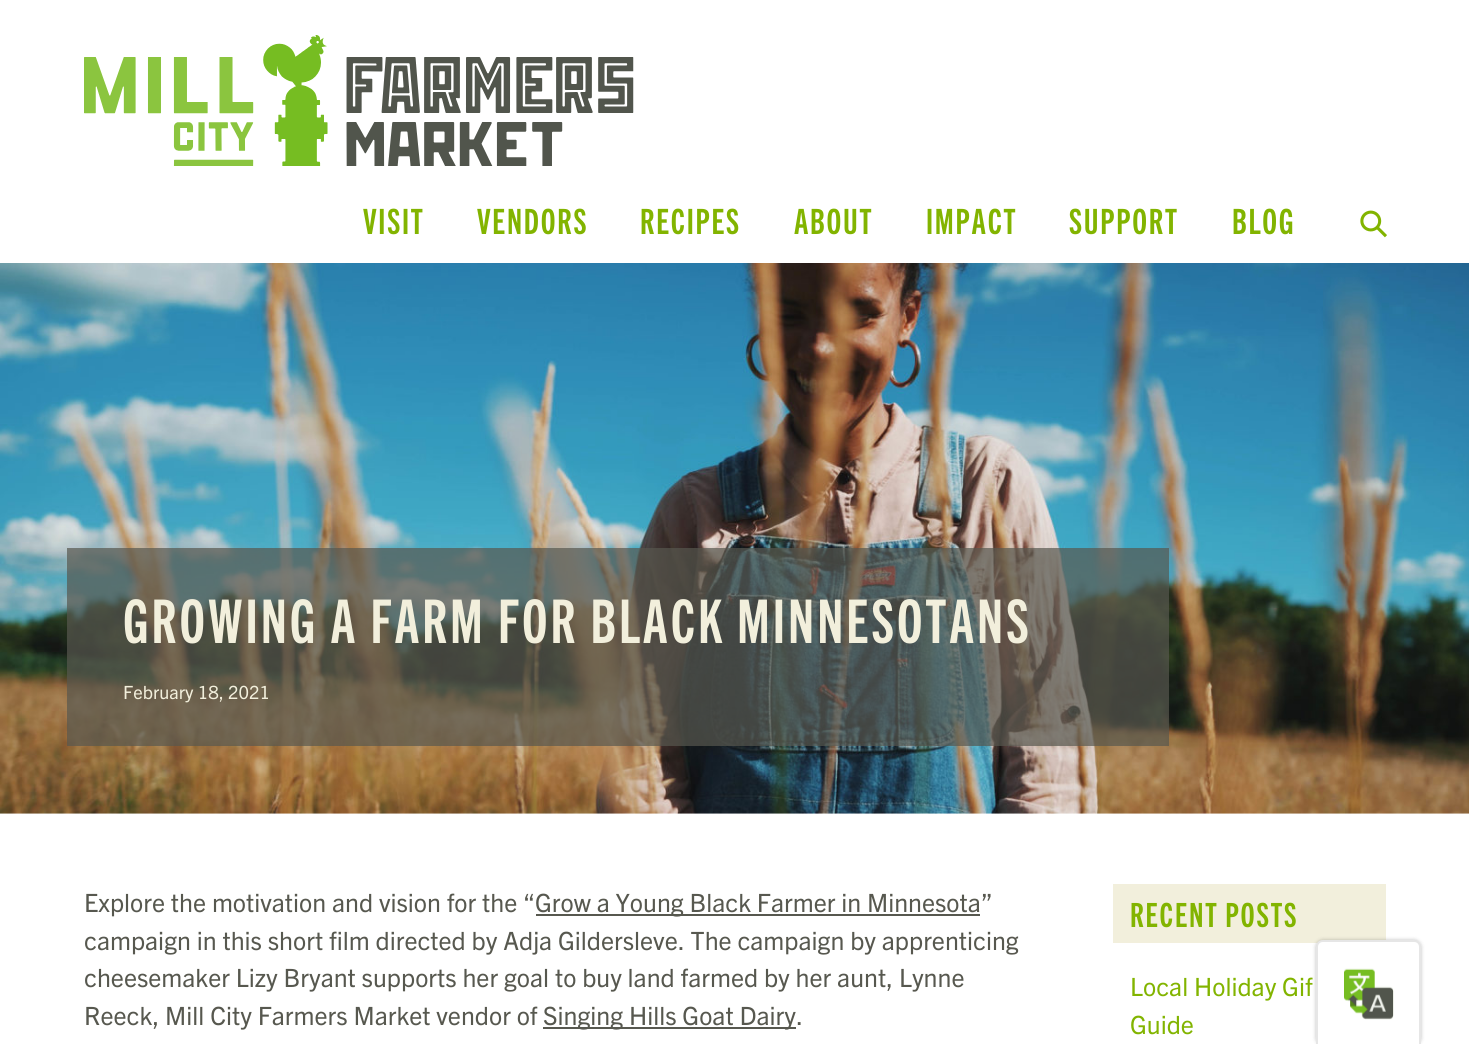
#include <cairo.h>
#include <math.h>
#include <stddef.h>


static void spaced_text(cairo_t *cr, double x, double y, const char *s, double letter, double word) {
    cairo_move_to(cr, x, y);
    while (*s) {
        char ch[5] = {0};
        int n = 0;
        do ch[n++] = *s++; while ((*s & 0xC0) == 0x80);
        cairo_show_text(cr, ch);
        cairo_rel_move_to(cr, letter + word * (*ch == ' '), 0);
    }
}

static void round_rect(cairo_t *cr, double x, double y, double w, double h, double r) {
    cairo_new_sub_path(cr);
    cairo_arc(cr, x + w - r, y + h - r, r, 0, M_PI / 2);
    cairo_arc(cr, x + r, y + h - r, r, M_PI / 2, M_PI);
    cairo_arc(cr, x + r, y + r, r, M_PI, 1.5 * M_PI);
    cairo_arc(cr, x + w - r, y + r, r, 1.5 * M_PI, 2 * M_PI);
    cairo_close_path(cr);
}

static void shadow(cairo_t *cr, double x, double y, double w, double h, double r, double blur, double alpha) {
    cairo_push_group_with_content(cr, CAIRO_CONTENT_ALPHA);
    cairo_set_operator(cr, CAIRO_OPERATOR_SOURCE);
    for (int i = 15; i >= -15 && fmin(w, h) + blur * i / 3 > 0; i -= 2) {
        double e = blur * i / 6;
        cairo_set_source_rgba(cr, 0, 0, 0, alpha * erfc((i - 1) / 8.5) / 2);
        round_rect(cr, x - e, y - e, w + 2 * e, h + 2 * e, fmax(0, fmin(r + e + blur * .6, fmin(w, h) / 2 + e)));
        cairo_fill(cr);
    }
    cairo_pattern_t *soft = cairo_pop_group(cr);
    cairo_mask(cr, soft);
    cairo_pattern_destroy(soft);
}

static void picture(cairo_t *cr, const char *path, double x, double y, double w, double h) {
    cairo_surface_t *image = cairo_image_surface_create_from_png(path);
    cairo_save(cr);
    cairo_set_source_surface(cr, image, x, y);
    cairo_rectangle(cr, x, y, w, h);
    cairo_fill(cr);
    cairo_restore(cr);
    cairo_surface_destroy(image);
}

int main(void) {
    cairo_surface_t *surface = cairo_image_surface_create(CAIRO_FORMAT_RGB24, 1469, 1044);
    cairo_t *cr = cairo_create(surface);
    cairo_font_options_t *options = cairo_font_options_create();
    cairo_font_options_set_hint_metrics(options, CAIRO_HINT_METRICS_OFF);
    cairo_font_options_set_hint_style(options, CAIRO_HINT_STYLE_NONE);
    cairo_set_font_options(cr, options);
    cairo_set_miter_limit(cr, 4);
    cairo_set_source_rgb(cr, 1, 1, 1);
    cairo_paint(cr);
    picture(cr, "img1.png", 84, 35, 550, 131);
    cairo_select_font_face(cr, "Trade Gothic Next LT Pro", CAIRO_FONT_SLANT_NORMAL, CAIRO_FONT_WEIGHT_BOLD);
    cairo_set_font_size(cr, 35);
    cairo_set_source_rgb(cr, 0.51, 0.706, 0);
    spaced_text(cr, 363, 234, "VISIT", 1.75, 0);
    spaced_text(cr, 477, 234, "VENDORS", 1.75, 0);
    spaced_text(cr, 640, 234, "RECIPES", 1.75, 0);
    spaced_text(cr, 794, 234, "ABOUT", 1.75, 0);
    spaced_text(cr, 926, 234, "IMPACT", 1.75, 0);
    spaced_text(cr, 1069, 234, "SUPPORT", 1.75, 0);
    spaced_text(cr, 1232, 234, "BLOG", 1.75, 0);
    picture(cr, "img2.png", 1360, 210, 27, 28);
    picture(cr, "img3.png", 0, 263, 1469, 551);
    cairo_set_source_rgba(cr, 0.341, 0.345, 0.31, 0.7);
    cairo_rectangle(cr, 67, 548, 1102, 198);
    cairo_fill(cr);
    cairo_set_font_size(cr, 60.5);
    cairo_set_source_rgb(cr, 0.949, 0.937, 0.863);
    spaced_text(cr, 123, 643, "GROWING A FARM FOR BLACK MINNESOTANS", 3, 0);
    cairo_select_font_face(cr, "Trade Gothic Next LT Pro", CAIRO_FONT_SLANT_NORMAL, CAIRO_FONT_WEIGHT_NORMAL);
    cairo_set_font_size(cr, 18.25);
    cairo_move_to(cr, 123, 699);
    cairo_show_text(cr, "February 18, 2021");
    cairo_set_font_size(cr, 25.2);
    cairo_set_source_rgb(cr, 0.341, 0.345, 0.31);
    cairo_move_to(cr, 84, 912);
    cairo_show_text(cr, "Explore the motivation and vision for the “");
    cairo_rectangle(cr, 536, 914, 444, 2);
    cairo_fill(cr);
    cairo_move_to(cr, 535, 912);
    cairo_show_text(cr, "Grow a Young Black Farmer in Minnesota”");
    cairo_move_to(cr, 84, 950);
    cairo_show_text(cr, "campaign in this short film directed by Adja Gildersleve. The campaign by apprenticing");
    cairo_move_to(cr, 84, 987);
    cairo_show_text(cr, "cheesemaker Lizy Bryant supports her goal to buy land farmed by her aunt, Lynne");
    cairo_move_to(cr, 84, 1025);
    cairo_show_text(cr, "Reeck, Mill City Farmers Market vendor of");
    cairo_rectangle(cr, 543, 1027, 253, 2);
    cairo_fill(cr);
    cairo_move_to(cr, 543, 1025);
    cairo_show_text(cr, "Singing Hills Goat Dairy.");
    cairo_set_source_rgb(cr, 0.949, 0.937, 0.863);
    cairo_rectangle(cr, 1113, 884, 273, 59);
    cairo_fill(cr);
    cairo_select_font_face(cr, "Trade Gothic Next LT Pro", CAIRO_FONT_SLANT_NORMAL, CAIRO_FONT_WEIGHT_BOLD);
    cairo_set_font_size(cr, 33.5);
    cairo_set_source_rgb(cr, 0.51, 0.706, 0);
    spaced_text(cr, 1130, 927, "RECENT POSTS", 1.75, 0);
    cairo_select_font_face(cr, "Trade Gothic Next LT Pro", CAIRO_FONT_SLANT_NORMAL, CAIRO_FONT_WEIGHT_NORMAL);
    cairo_set_font_size(cr, 25.2);
    cairo_move_to(cr, 1130, 996);
    cairo_show_text(cr, "Local Holiday Gif");
    cairo_move_to(cr, 1130, 1034);
    cairo_show_text(cr, "Guide");
    cairo_set_source_rgb(cr, 0, 0, 0);
    shadow(cr, 1316, 940, 105, 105, 7, 2, 0.25);
    cairo_set_source_rgb(cr, 1, 1, 1);
    cairo_new_path(cr);
    cairo_move_to(cr, 1323, 940);
    cairo_line_to(cr, 1414, 940);
    cairo_curve_to(cr, 1418, 940, 1421, 943, 1421, 947);
    cairo_line_to(cr, 1421, 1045);
    cairo_line_to(cr, 1316, 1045);
    cairo_line_to(cr, 1316, 947);
    cairo_curve_to(cr, 1316, 943, 1319, 940, 1323, 940);
    cairo_close_path(cr);
    cairo_fill(cr);
    picture(cr, "img4.png", 1344, 968, 50, 52);
    cairo_set_source_rgba(cr, 0, 0, 0, 0.1);
    cairo_set_fill_rule(cr, CAIRO_FILL_RULE_EVEN_ODD);
    cairo_new_path(cr);
    cairo_move_to(cr, 1323, 940);
    cairo_line_to(cr, 1414, 940);
    cairo_curve_to(cr, 1418, 940, 1421, 943, 1421, 947);
    cairo_line_to(cr, 1421, 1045);
    cairo_line_to(cr, 1316, 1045);
    cairo_line_to(cr, 1316, 947);
    cairo_curve_to(cr, 1316, 943, 1319, 940, 1323, 940);
    cairo_close_path(cr);
    cairo_move_to(cr, 1323, 942);
    cairo_line_to(cr, 1414, 942);
    cairo_curve_to(cr, 1417, 942, 1419, 944, 1419, 947);
    cairo_line_to(cr, 1419, 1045);
    cairo_line_to(cr, 1318, 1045);
    cairo_line_to(cr, 1318, 947);
    cairo_curve_to(cr, 1318, 944, 1320, 942, 1323, 942);
    cairo_close_path(cr);
    cairo_fill(cr);
    cairo_surface_write_to_png(surface, "page.png");
    cairo_font_options_destroy(options);
    cairo_destroy(cr);
    cairo_surface_destroy(surface);
    return 0;
}
